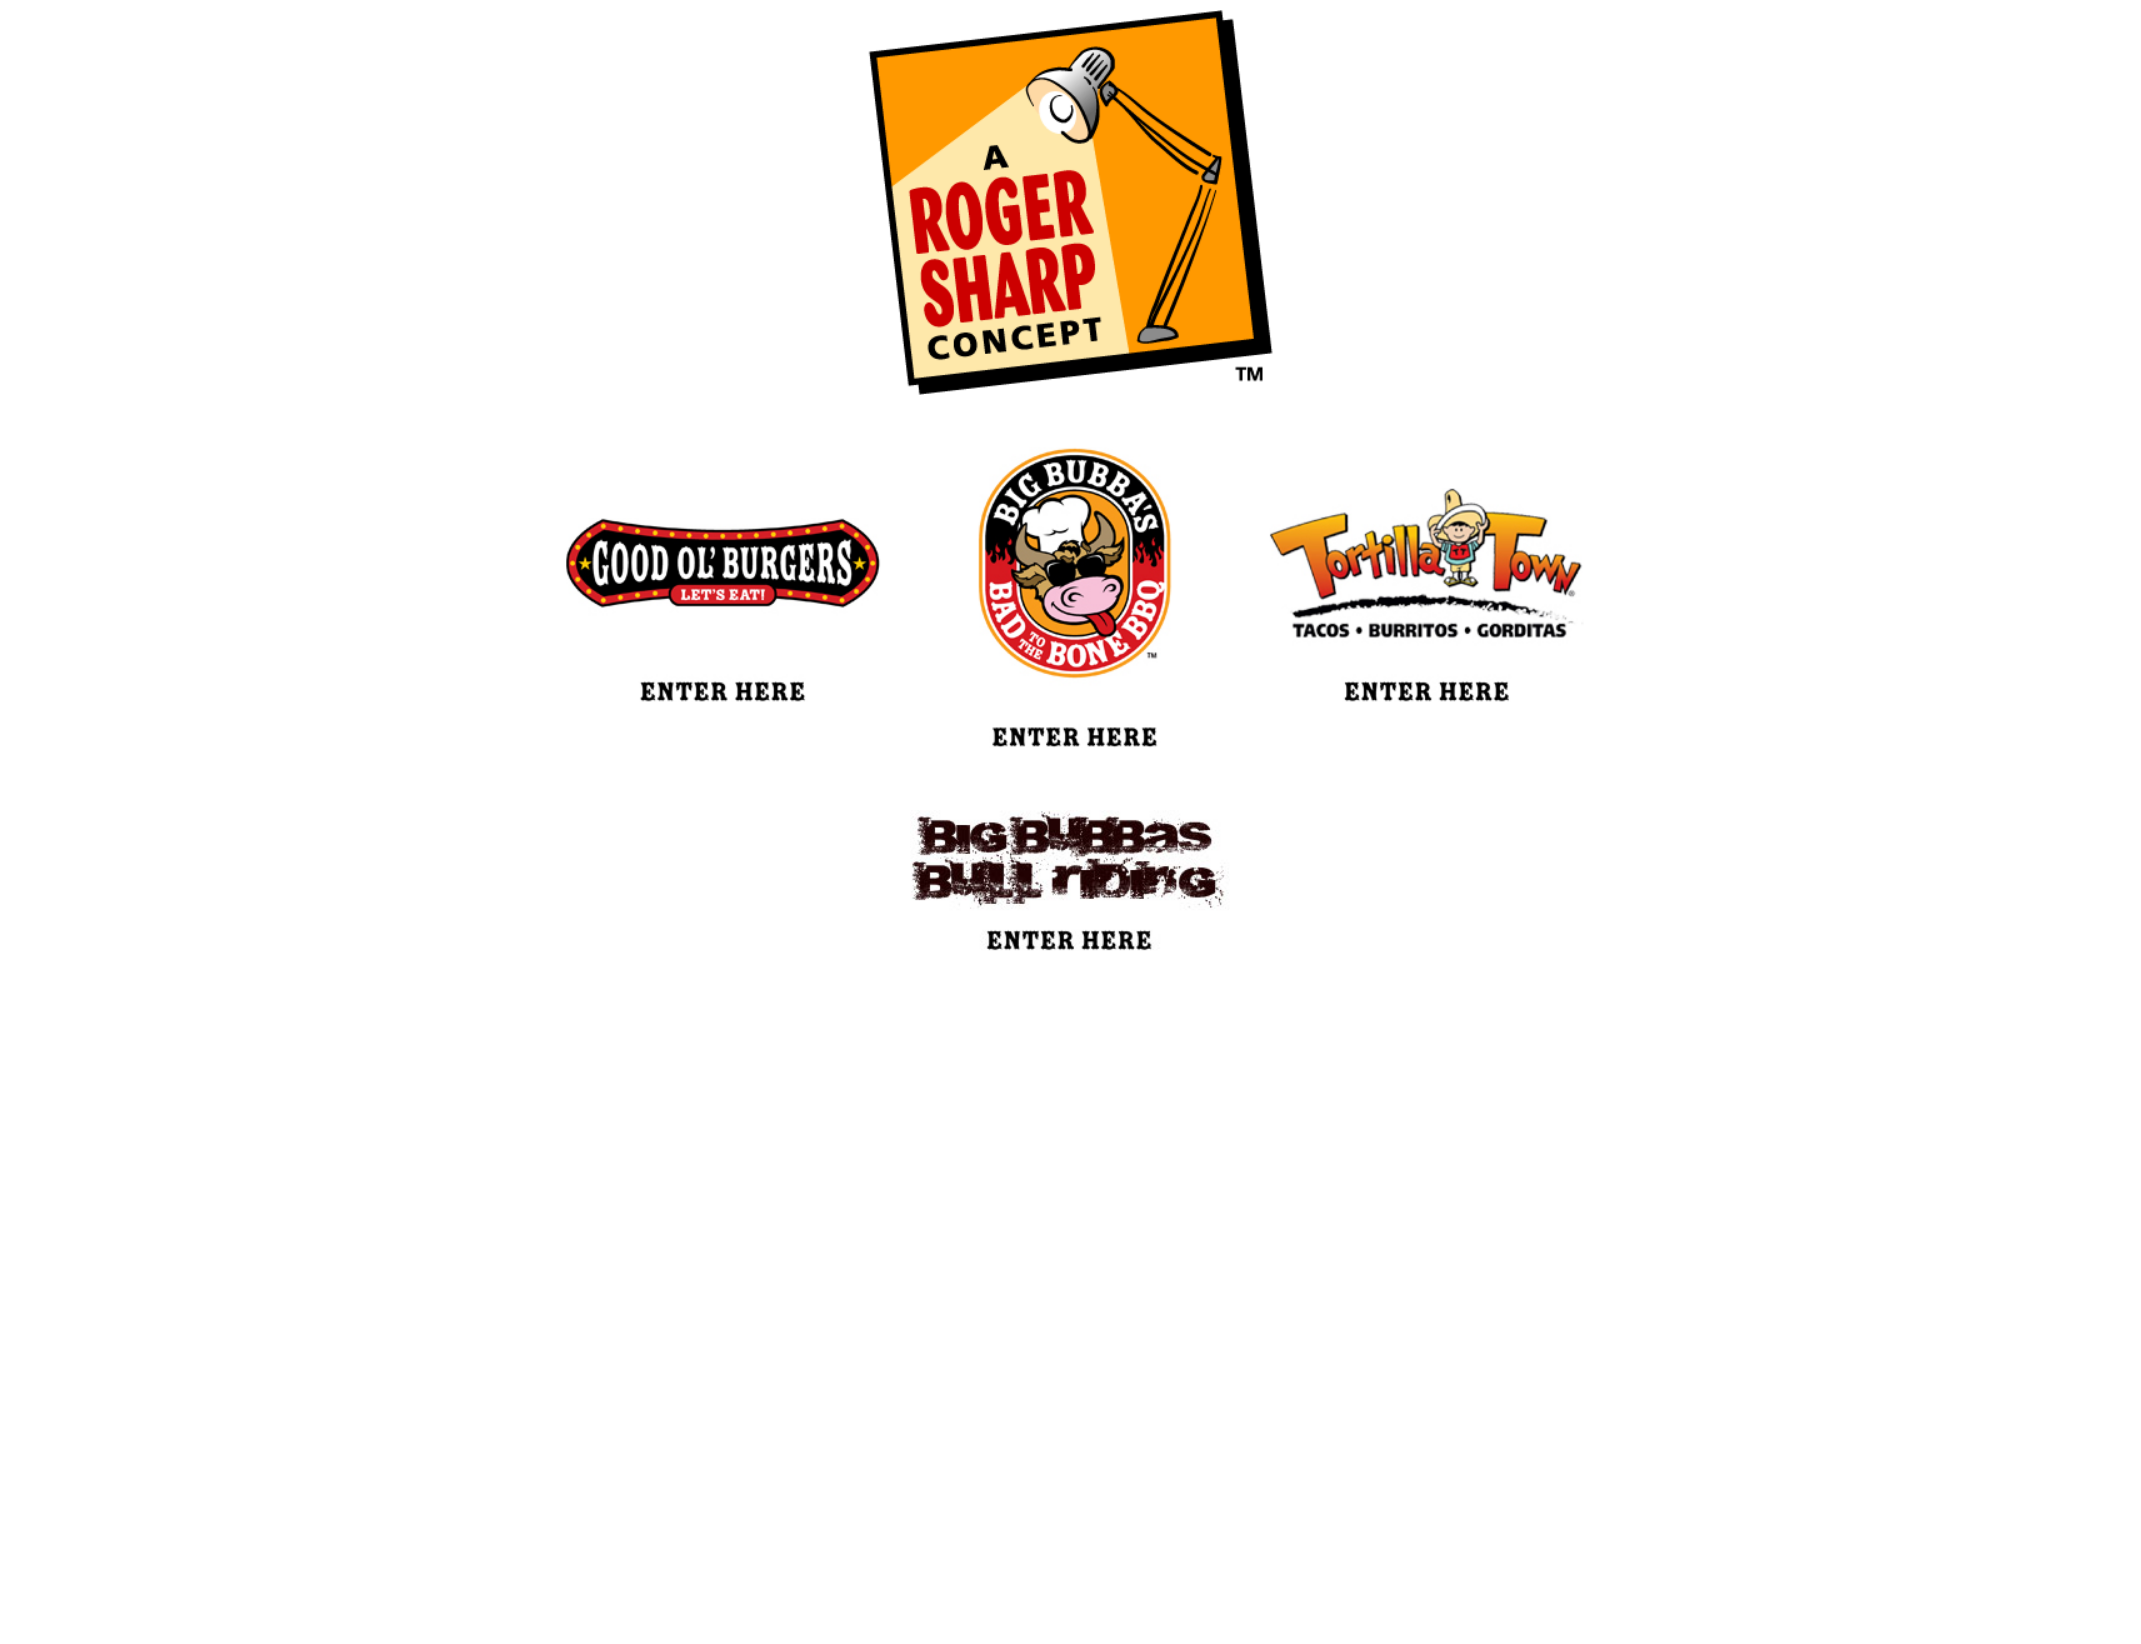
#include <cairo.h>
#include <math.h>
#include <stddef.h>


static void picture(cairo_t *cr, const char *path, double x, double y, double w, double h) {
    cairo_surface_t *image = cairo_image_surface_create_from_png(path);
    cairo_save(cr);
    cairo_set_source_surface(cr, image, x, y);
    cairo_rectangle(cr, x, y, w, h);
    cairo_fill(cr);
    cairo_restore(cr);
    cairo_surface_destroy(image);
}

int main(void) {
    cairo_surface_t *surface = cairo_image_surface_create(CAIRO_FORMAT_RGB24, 2141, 1644);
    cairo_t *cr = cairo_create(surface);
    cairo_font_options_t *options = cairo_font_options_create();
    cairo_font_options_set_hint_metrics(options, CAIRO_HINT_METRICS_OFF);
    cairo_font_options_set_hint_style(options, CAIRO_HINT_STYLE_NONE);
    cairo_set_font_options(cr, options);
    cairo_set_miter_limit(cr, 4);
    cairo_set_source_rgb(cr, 1, 1, 1);
    cairo_paint(cr);
    picture(cr, "img1.png", 868, 10, 405, 385);
    picture(cr, "img2.png", 566, 518, 315, 184);
    picture(cr, "img3.png", 978, 447, 194, 301);
    picture(cr, "img4.png", 1269, 488, 315, 214);
    picture(cr, "img5.png", 910, 810, 320, 141);
    cairo_surface_write_to_png(surface, "page.png");
    cairo_font_options_destroy(options);
    cairo_destroy(cr);
    cairo_surface_destroy(surface);
    return 0;
}
